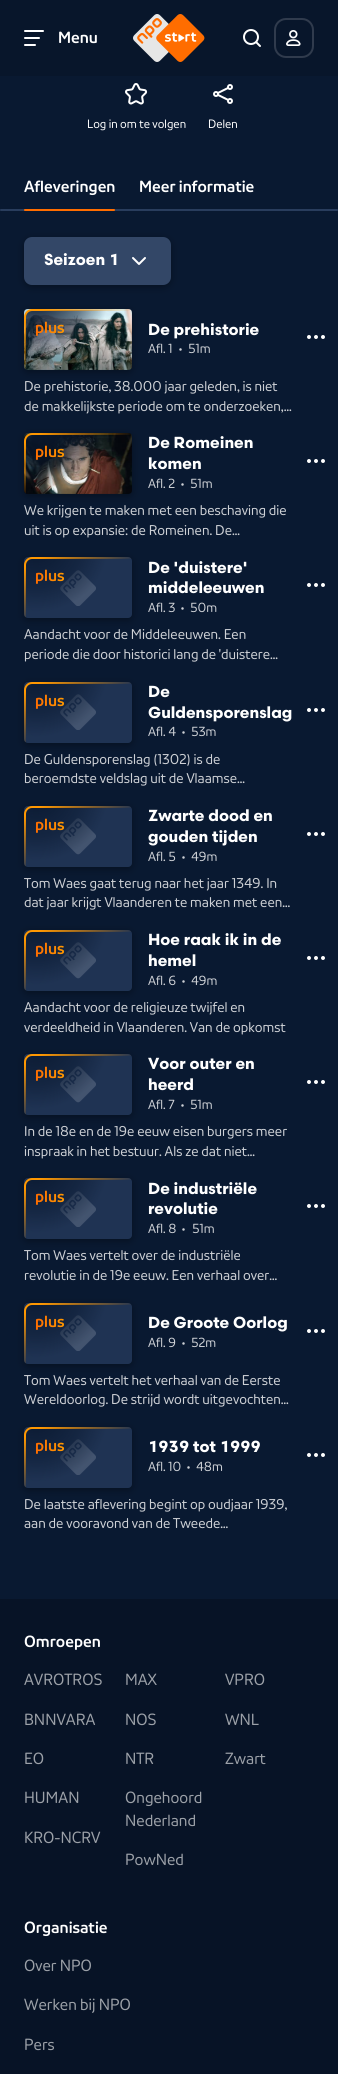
#include <cairo.h>
#include <math.h>
#include <stddef.h>


static void round_rect(cairo_t *cr, double x, double y, double w, double h, double r) {
    cairo_new_sub_path(cr);
    cairo_arc(cr, x + w - r, y + h - r, r, 0, M_PI / 2);
    cairo_arc(cr, x + r, y + h - r, r, M_PI / 2, M_PI);
    cairo_arc(cr, x + r, y + r, r, M_PI, 1.5 * M_PI);
    cairo_arc(cr, x + w - r, y + r, r, 1.5 * M_PI, 2 * M_PI);
    cairo_close_path(cr);
}

static void shadow(cairo_t *cr, double x, double y, double w, double h, double r, double blur, double alpha) {
    cairo_push_group_with_content(cr, CAIRO_CONTENT_ALPHA);
    cairo_set_operator(cr, CAIRO_OPERATOR_SOURCE);
    for (int i = 15; i >= -15 && fmin(w, h) + blur * i / 3 > 0; i -= 2) {
        double e = blur * i / 6;
        cairo_set_source_rgba(cr, 0, 0, 0, alpha * erfc((i - 1) / 8.5) / 2);
        round_rect(cr, x - e, y - e, w + 2 * e, h + 2 * e, fmax(0, fmin(r + e + blur * .6, fmin(w, h) / 2 + e)));
        cairo_fill(cr);
    }
    cairo_pattern_t *soft = cairo_pop_group(cr);
    cairo_mask(cr, soft);
    cairo_pattern_destroy(soft);
}

static void picture(cairo_t *cr, const char *path, double x, double y, double w, double h) {
    cairo_surface_t *image = cairo_image_surface_create_from_png(path);
    cairo_save(cr);
    cairo_set_source_surface(cr, image, x, y);
    cairo_rectangle(cr, x, y, w, h);
    cairo_fill(cr);
    cairo_restore(cr);
    cairo_surface_destroy(image);
}

int main(void) {
    cairo_surface_t *surface = cairo_image_surface_create(CAIRO_FORMAT_RGB24, 338, 2074);
    cairo_t *cr = cairo_create(surface);
    cairo_font_options_t *options = cairo_font_options_create();
    cairo_font_options_set_hint_metrics(options, CAIRO_HINT_METRICS_OFF);
    cairo_font_options_set_hint_style(options, CAIRO_HINT_STYLE_NONE);
    cairo_set_font_options(cr, options);
    cairo_set_miter_limit(cr, 4);
    cairo_pattern_t *gradient;
    cairo_set_source_rgb(cr, 0.039, 0.098, 0.192);
    cairo_paint(cr);
    cairo_set_source_rgb(cr, 0.035, 0.086, 0.169);
    cairo_rectangle(cr, 0, 0, 338, 76);
    cairo_fill(cr);
    picture(cr, "img1.png", 24, 30, 20, 16);
    cairo_select_font_face(cr, "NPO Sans", CAIRO_FONT_SLANT_NORMAL, CAIRO_FONT_WEIGHT_BOLD);
    cairo_set_font_size(cr, 16);
    cairo_set_source_rgb(cr, 1, 1, 1);
    cairo_move_to(cr, 58, 43);
    cairo_show_text(cr, "Menu");
    picture(cr, "img2.png", 133, 14, 72, 48);
    picture(cr, "img3.png", 243, 29, 18, 18);
    round_rect(cr, 275, 19, 38, 38, 11);
    cairo_set_source_rgb(cr, 0.188, 0.231, 0.302);
    cairo_stroke(cr);
    picture(cr, "img4.png", 286, 30, 15, 16);
    picture(cr, "img5.png", 125, 83, 23, 22);
    cairo_select_font_face(cr, "NPO Sans", CAIRO_FONT_SLANT_NORMAL, CAIRO_FONT_WEIGHT_NORMAL);
    cairo_set_font_size(cr, 12);
    cairo_set_source_rgb(cr, 1, 1, 1);
    cairo_move_to(cr, 87, 128);
    cairo_show_text(cr, "Log in om te volgen");
    picture(cr, "img6.png", 213, 84, 20, 20);
    cairo_move_to(cr, 208, 128);
    cairo_show_text(cr, "Delen");
    cairo_select_font_face(cr, "NPO Sans", CAIRO_FONT_SLANT_NORMAL, CAIRO_FONT_WEIGHT_BOLD);
    cairo_set_font_size(cr, 16);
    cairo_move_to(cr, 24, 192);
    cairo_show_text(cr, "Afleveringen");
    cairo_set_source_rgb(cr, 0.161, 0.239, 0.365);
    round_rect(cr, 0, 209, 338, 2, 1);
    cairo_fill(cr);
    cairo_set_source_rgb(cr, 1, 0.427, 0);
    round_rect(cr, 24, 209, 91, 2, 1);
    cairo_fill(cr);
    cairo_set_source_rgb(cr, 1, 1, 1);
    cairo_move_to(cr, 139, 192);
    cairo_show_text(cr, "Meer informatie");
    cairo_set_source_rgb(cr, 0, 0, 0);
    shadow(cr, 24, 239, 147, 48, 8, 4, 0.35);
    cairo_set_source_rgb(cr, 0.2, 0.278, 0.404);
    round_rect(cr, 24, 237, 147, 48, 8);
    cairo_fill(cr);
    cairo_select_font_face(cr, "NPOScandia", CAIRO_FONT_SLANT_NORMAL, CAIRO_FONT_WEIGHT_BOLD);
    cairo_set_source_rgb(cr, 1, 1, 1);
    cairo_move_to(cr, 44, 265);
    cairo_show_text(cr, "Seizoen 1");
    picture(cr, "img7.png", 132, 257, 14, 8);
    cairo_set_source_rgb(cr, 0, 0, 0);
    shadow(cr, 24, 311, 108, 61, 4, 4, 0.35);
    picture(cr, "img8.png", 24, 309, 108, 61);
    gradient = cairo_pattern_create_radial(0, 0, 0, 0, 0, 1);
    cairo_pattern_set_matrix(gradient, &(cairo_matrix_t){1.0 / 72, 0, 0, 1.0 / 66, -1.0 * 36 / 72, -1.0 * 298 / 66});
    cairo_pattern_add_color_stop_rgba(gradient, 0, 0.039, 0.098, 0.192, 1);
    cairo_pattern_add_color_stop_rgba(gradient, 0.64, 0.039, 0.098, 0.192, 0.5);
    cairo_pattern_add_color_stop_rgba(gradient, 1, 0.039, 0.098, 0.192, 0);
    cairo_set_source(cr, gradient);
    cairo_pattern_destroy(gradient);
    cairo_new_path(cr);
    cairo_move_to(cr, 25, 317);
    cairo_curve_to(cr, 25, 313, 28, 310, 32, 310);
    cairo_line_to(cr, 131, 310);
    cairo_curve_to(cr, 131, 311, 132, 312, 132, 313);
    cairo_line_to(cr, 132, 366);
    cairo_curve_to(cr, 132, 368, 130, 370, 128, 370);
    cairo_line_to(cr, 28, 370);
    cairo_curve_to(cr, 27, 370, 26, 369, 25, 369);
    cairo_close_path(cr);
    cairo_fill(cr);
    cairo_save(cr);
    round_rect(cr, 24, 309, 108, 61, 4);
    cairo_clip(cr);
    cairo_new_path(cr);
    cairo_move_to(cr, 25, 317);
    cairo_curve_to(cr, 25, 313.5, 28, 310, 32, 310);
    cairo_line_to(cr, 133, 310);
    cairo_line_to(cr, 133, 375);
    cairo_line_to(cr, 25, 375);
    cairo_close_path(cr);
    gradient = cairo_pattern_create_linear(53, 359, 28, 317);
    cairo_pattern_add_color_stop_rgba(gradient, 0, 1, 0.596, 0.004, 0);
    cairo_pattern_add_color_stop_rgba(gradient, 1, 1, 0.596, 0.004, 1);
    cairo_set_source(cr, gradient);
    cairo_pattern_destroy(gradient);
    cairo_stroke(cr);
    cairo_restore(cr);
    cairo_select_font_face(cr, "NPO Sans", CAIRO_FONT_SLANT_NORMAL, CAIRO_FONT_WEIGHT_BOLD);
    gradient = cairo_pattern_create_linear(35, 328, 65, 328);
    cairo_pattern_add_color_stop_rgba(gradient, 0, 1, 0.427, 0, 1);
    cairo_pattern_add_color_stop_rgba(gradient, 1, 1, 0.6, 0, 1);
    cairo_set_source(cr, gradient);
    cairo_pattern_destroy(gradient);
    cairo_move_to(cr, 35, 333);
    cairo_show_text(cr, "plus");
    cairo_select_font_face(cr, "NPOScandia", CAIRO_FONT_SLANT_NORMAL, CAIRO_FONT_WEIGHT_BOLD);
    cairo_set_source_rgb(cr, 1, 1, 1);
    cairo_move_to(cr, 148, 335);
    cairo_show_text(cr, "De prehistorie");
    cairo_select_font_face(cr, "NPO Sans", CAIRO_FONT_SLANT_NORMAL, CAIRO_FONT_WEIGHT_NORMAL);
    cairo_set_font_size(cr, 13);
    cairo_set_source_rgb(cr, 0.808, 0.82, 0.839);
    cairo_move_to(cr, 148, 353);
    cairo_show_text(cr, "Afl. 1");
    cairo_move_to(cr, 179, 353);
    cairo_show_text(cr, "•");
    cairo_move_to(cr, 188, 353);
    cairo_show_text(cr, "51m");
    cairo_set_font_size(cr, 14);
    cairo_move_to(cr, 24, 391);
    cairo_show_text(cr, "De prehistorie, 38.000 jaar geleden, is niet");
    cairo_move_to(cr, 24, 411);
    cairo_show_text(cr, "de makkelijkste periode om te onderzoeken,…");
    picture(cr, "img9.png", 307, 335, 18, 4);
    cairo_set_source_rgb(cr, 0, 0, 0);
    shadow(cr, 24, 435, 108, 61, 4, 4, 0.35);
    picture(cr, "img10.png", 24, 433, 108, 61);
    gradient = cairo_pattern_create_radial(0, 0, 0, 0, 0, 1);
    cairo_pattern_set_matrix(gradient, &(cairo_matrix_t){1.0 / 72, 0, 0, 1.0 / 66, -1.0 * 36 / 72, -1.0 * 422 / 66});
    cairo_pattern_add_color_stop_rgba(gradient, 0, 0.039, 0.098, 0.192, 1);
    cairo_pattern_add_color_stop_rgba(gradient, 0.64, 0.039, 0.098, 0.192, 0.5);
    cairo_pattern_add_color_stop_rgba(gradient, 1, 0.039, 0.098, 0.192, 0);
    cairo_set_source(cr, gradient);
    cairo_pattern_destroy(gradient);
    cairo_new_path(cr);
    cairo_move_to(cr, 25, 441);
    cairo_curve_to(cr, 25, 437, 28, 434, 32, 434);
    cairo_line_to(cr, 131, 434);
    cairo_curve_to(cr, 131, 435, 132, 436, 132, 437);
    cairo_line_to(cr, 132, 490);
    cairo_curve_to(cr, 132, 492, 130, 494, 128, 494);
    cairo_line_to(cr, 28, 494);
    cairo_curve_to(cr, 27, 494, 26, 493, 25, 493);
    cairo_close_path(cr);
    cairo_fill(cr);
    cairo_save(cr);
    round_rect(cr, 24, 433, 108, 61, 4);
    cairo_clip(cr);
    cairo_new_path(cr);
    cairo_move_to(cr, 25, 441);
    cairo_curve_to(cr, 25, 437.5, 28, 434, 32, 434);
    cairo_line_to(cr, 133, 434);
    cairo_line_to(cr, 133, 499);
    cairo_line_to(cr, 25, 499);
    cairo_close_path(cr);
    gradient = cairo_pattern_create_linear(53, 483, 28, 441);
    cairo_pattern_add_color_stop_rgba(gradient, 0, 1, 0.596, 0.004, 0);
    cairo_pattern_add_color_stop_rgba(gradient, 1, 1, 0.596, 0.004, 1);
    cairo_set_source(cr, gradient);
    cairo_pattern_destroy(gradient);
    cairo_stroke(cr);
    cairo_restore(cr);
    cairo_select_font_face(cr, "NPO Sans", CAIRO_FONT_SLANT_NORMAL, CAIRO_FONT_WEIGHT_BOLD);
    cairo_set_font_size(cr, 16);
    gradient = cairo_pattern_create_linear(35, 452, 65, 452);
    cairo_pattern_add_color_stop_rgba(gradient, 0, 1, 0.427, 0, 1);
    cairo_pattern_add_color_stop_rgba(gradient, 1, 1, 0.6, 0, 1);
    cairo_set_source(cr, gradient);
    cairo_pattern_destroy(gradient);
    cairo_move_to(cr, 35, 457);
    cairo_show_text(cr, "plus");
    cairo_select_font_face(cr, "NPOScandia", CAIRO_FONT_SLANT_NORMAL, CAIRO_FONT_WEIGHT_BOLD);
    cairo_set_source_rgb(cr, 1, 1, 1);
    cairo_move_to(cr, 148, 448);
    cairo_show_text(cr, "De Romeinen");
    cairo_move_to(cr, 148, 469);
    cairo_show_text(cr, "komen");
    cairo_select_font_face(cr, "NPO Sans", CAIRO_FONT_SLANT_NORMAL, CAIRO_FONT_WEIGHT_NORMAL);
    cairo_set_font_size(cr, 13);
    cairo_set_source_rgb(cr, 0.808, 0.82, 0.839);
    cairo_move_to(cr, 148, 488);
    cairo_show_text(cr, "Afl. 2");
    cairo_move_to(cr, 181, 488);
    cairo_show_text(cr, "•");
    cairo_move_to(cr, 190, 488);
    cairo_show_text(cr, "51m");
    cairo_set_font_size(cr, 14);
    cairo_move_to(cr, 24, 515);
    cairo_show_text(cr, "We krijgen te maken met een beschaving die");
    cairo_move_to(cr, 24, 535);
    cairo_show_text(cr, "uit is op expansie: de Romeinen. De…");
    picture(cr, "img9.png", 307, 459, 18, 4);
    cairo_set_source_rgb(cr, 0, 0, 0);
    shadow(cr, 24, 559, 108, 61, 4, 4, 0.35);
    cairo_set_source_rgb(cr, 0.122, 0.2, 0.325);
    round_rect(cr, 24, 557, 108, 61, 4);
    cairo_fill(cr);
    picture(cr, "img11.png", 60, 570, 36, 36);
    gradient = cairo_pattern_create_radial(0, 0, 0, 0, 0, 1);
    cairo_pattern_set_matrix(gradient, &(cairo_matrix_t){1.0 / 72, 0, 0, 1.0 / 66, -1.0 * 36 / 72, -1.0 * 546 / 66});
    cairo_pattern_add_color_stop_rgba(gradient, 0, 0.039, 0.098, 0.192, 1);
    cairo_pattern_add_color_stop_rgba(gradient, 0.64, 0.039, 0.098, 0.192, 0.5);
    cairo_pattern_add_color_stop_rgba(gradient, 1, 0.039, 0.098, 0.192, 0);
    cairo_set_source(cr, gradient);
    cairo_pattern_destroy(gradient);
    cairo_new_path(cr);
    cairo_move_to(cr, 25, 565);
    cairo_curve_to(cr, 25, 561, 28, 558, 32, 558);
    cairo_line_to(cr, 131, 558);
    cairo_curve_to(cr, 131, 559, 132, 560, 132, 561);
    cairo_line_to(cr, 132, 614);
    cairo_curve_to(cr, 132, 616, 130, 618, 128, 618);
    cairo_line_to(cr, 28, 618);
    cairo_curve_to(cr, 27, 618, 26, 617, 25, 617);
    cairo_close_path(cr);
    cairo_fill(cr);
    cairo_save(cr);
    round_rect(cr, 24, 557, 108, 61, 4);
    cairo_clip(cr);
    cairo_new_path(cr);
    cairo_move_to(cr, 25, 565);
    cairo_curve_to(cr, 25, 561.5, 28, 558, 32, 558);
    cairo_line_to(cr, 133, 558);
    cairo_line_to(cr, 133, 623);
    cairo_line_to(cr, 25, 623);
    cairo_close_path(cr);
    gradient = cairo_pattern_create_linear(53, 607, 28, 565);
    cairo_pattern_add_color_stop_rgba(gradient, 0, 1, 0.596, 0.004, 0);
    cairo_pattern_add_color_stop_rgba(gradient, 1, 1, 0.596, 0.004, 1);
    cairo_set_source(cr, gradient);
    cairo_pattern_destroy(gradient);
    cairo_stroke(cr);
    cairo_restore(cr);
    cairo_select_font_face(cr, "NPO Sans", CAIRO_FONT_SLANT_NORMAL, CAIRO_FONT_WEIGHT_BOLD);
    cairo_set_font_size(cr, 16);
    gradient = cairo_pattern_create_linear(35, 576, 65, 576);
    cairo_pattern_add_color_stop_rgba(gradient, 0, 1, 0.427, 0, 1);
    cairo_pattern_add_color_stop_rgba(gradient, 1, 1, 0.6, 0, 1);
    cairo_set_source(cr, gradient);
    cairo_pattern_destroy(gradient);
    cairo_move_to(cr, 35, 581);
    cairo_show_text(cr, "plus");
    cairo_select_font_face(cr, "NPOScandia", CAIRO_FONT_SLANT_NORMAL, CAIRO_FONT_WEIGHT_BOLD);
    cairo_set_source_rgb(cr, 1, 1, 1);
    cairo_move_to(cr, 148, 573);
    cairo_show_text(cr, "De 'duistere'");
    cairo_move_to(cr, 148, 593);
    cairo_show_text(cr, "middeleeuwen");
    cairo_select_font_face(cr, "NPO Sans", CAIRO_FONT_SLANT_NORMAL, CAIRO_FONT_WEIGHT_NORMAL);
    cairo_set_font_size(cr, 13);
    cairo_set_source_rgb(cr, 0.808, 0.82, 0.839);
    cairo_move_to(cr, 148, 612);
    cairo_show_text(cr, "Afl. 3");
    cairo_move_to(cr, 181, 612);
    cairo_show_text(cr, "•");
    cairo_move_to(cr, 190, 612);
    cairo_show_text(cr, "50m");
    cairo_set_font_size(cr, 14);
    cairo_move_to(cr, 24, 639);
    cairo_show_text(cr, "Aandacht voor de Middeleeuwen. Een");
    cairo_move_to(cr, 24, 659);
    cairo_show_text(cr, "periode die door historici lang de 'duistere…");
    picture(cr, "img9.png", 307, 583, 18, 4);
    cairo_set_source_rgb(cr, 0, 0, 0);
    shadow(cr, 24, 684, 108, 61, 4, 4, 0.35);
    cairo_set_source_rgb(cr, 0.122, 0.2, 0.325);
    round_rect(cr, 24, 682, 108, 61, 4);
    cairo_fill(cr);
    picture(cr, "img11.png", 60, 694, 36, 36);
    gradient = cairo_pattern_create_radial(0, 0, 0, 0, 0, 1);
    cairo_pattern_set_matrix(gradient, &(cairo_matrix_t){1.0 / 72, 0, 0, 1.0 / 66, -1.0 * 36 / 72, -1.0 * 671 / 66});
    cairo_pattern_add_color_stop_rgba(gradient, 0, 0.039, 0.098, 0.192, 1);
    cairo_pattern_add_color_stop_rgba(gradient, 0.64, 0.039, 0.098, 0.192, 0.5);
    cairo_pattern_add_color_stop_rgba(gradient, 1, 0.039, 0.098, 0.192, 0);
    cairo_set_source(cr, gradient);
    cairo_pattern_destroy(gradient);
    cairo_new_path(cr);
    cairo_move_to(cr, 25, 690);
    cairo_curve_to(cr, 25, 686, 28, 683, 32, 683);
    cairo_line_to(cr, 131, 683);
    cairo_curve_to(cr, 131, 684, 132, 685, 132, 686);
    cairo_line_to(cr, 132, 739);
    cairo_curve_to(cr, 132, 741, 130, 743, 128, 743);
    cairo_line_to(cr, 28, 743);
    cairo_curve_to(cr, 27, 743, 26, 742, 25, 742);
    cairo_close_path(cr);
    cairo_fill(cr);
    cairo_save(cr);
    round_rect(cr, 24, 682, 108, 61, 4);
    cairo_clip(cr);
    cairo_new_path(cr);
    cairo_move_to(cr, 25, 690);
    cairo_curve_to(cr, 25, 686.5, 28, 683, 32, 683);
    cairo_line_to(cr, 133, 683);
    cairo_line_to(cr, 133, 748);
    cairo_line_to(cr, 25, 748);
    cairo_close_path(cr);
    gradient = cairo_pattern_create_linear(53, 732, 28, 690);
    cairo_pattern_add_color_stop_rgba(gradient, 0, 1, 0.596, 0.004, 0);
    cairo_pattern_add_color_stop_rgba(gradient, 1, 1, 0.596, 0.004, 1);
    cairo_set_source(cr, gradient);
    cairo_pattern_destroy(gradient);
    cairo_stroke(cr);
    cairo_restore(cr);
    cairo_select_font_face(cr, "NPO Sans", CAIRO_FONT_SLANT_NORMAL, CAIRO_FONT_WEIGHT_BOLD);
    cairo_set_font_size(cr, 16);
    gradient = cairo_pattern_create_linear(35, 701, 65, 701);
    cairo_pattern_add_color_stop_rgba(gradient, 0, 1, 0.427, 0, 1);
    cairo_pattern_add_color_stop_rgba(gradient, 1, 1, 0.6, 0, 1);
    cairo_set_source(cr, gradient);
    cairo_pattern_destroy(gradient);
    cairo_move_to(cr, 35, 706);
    cairo_show_text(cr, "plus");
    cairo_select_font_face(cr, "NPOScandia", CAIRO_FONT_SLANT_NORMAL, CAIRO_FONT_WEIGHT_BOLD);
    cairo_set_source_rgb(cr, 1, 1, 1);
    cairo_move_to(cr, 148, 697);
    cairo_show_text(cr, "De");
    cairo_move_to(cr, 148, 718);
    cairo_show_text(cr, "Guldensporenslag");
    cairo_select_font_face(cr, "NPO Sans", CAIRO_FONT_SLANT_NORMAL, CAIRO_FONT_WEIGHT_NORMAL);
    cairo_set_font_size(cr, 13);
    cairo_set_source_rgb(cr, 0.808, 0.82, 0.839);
    cairo_move_to(cr, 148, 736);
    cairo_show_text(cr, "Afl. 4");
    cairo_move_to(cr, 182, 736);
    cairo_show_text(cr, "•");
    cairo_move_to(cr, 191, 736);
    cairo_show_text(cr, "53m");
    cairo_set_font_size(cr, 14);
    cairo_move_to(cr, 24, 764);
    cairo_show_text(cr, "De Guldensporenslag (1302) is de");
    cairo_move_to(cr, 24, 783);
    cairo_show_text(cr, "beroemdste veldslag uit de Vlaamse…");
    picture(cr, "img9.png", 307, 708, 18, 4);
    cairo_set_source_rgb(cr, 0, 0, 0);
    shadow(cr, 24, 808, 108, 61, 4, 4, 0.35);
    cairo_set_source_rgb(cr, 0.122, 0.2, 0.325);
    round_rect(cr, 24, 806, 108, 61, 4);
    cairo_fill(cr);
    picture(cr, "img12.png", 60, 818, 36, 37);
    gradient = cairo_pattern_create_radial(0, 0, 0, 0, 0, 1);
    cairo_pattern_set_matrix(gradient, &(cairo_matrix_t){1.0 / 72, 0, 0, 1.0 / 66, -1.0 * 36 / 72, -1.0 * 795 / 66});
    cairo_pattern_add_color_stop_rgba(gradient, 0, 0.039, 0.098, 0.192, 1);
    cairo_pattern_add_color_stop_rgba(gradient, 0.64, 0.039, 0.098, 0.192, 0.5);
    cairo_pattern_add_color_stop_rgba(gradient, 1, 0.039, 0.098, 0.192, 0);
    cairo_set_source(cr, gradient);
    cairo_pattern_destroy(gradient);
    cairo_new_path(cr);
    cairo_move_to(cr, 25, 814);
    cairo_curve_to(cr, 25, 810, 28, 807, 32, 807);
    cairo_line_to(cr, 131, 807);
    cairo_curve_to(cr, 131, 808, 132, 809, 132, 810);
    cairo_line_to(cr, 132, 863);
    cairo_curve_to(cr, 132, 865, 130, 867, 128, 867);
    cairo_line_to(cr, 28, 867);
    cairo_curve_to(cr, 27, 867, 26, 866, 25, 866);
    cairo_close_path(cr);
    cairo_fill(cr);
    cairo_save(cr);
    round_rect(cr, 24, 806, 108, 61, 4);
    cairo_clip(cr);
    cairo_new_path(cr);
    cairo_move_to(cr, 25, 814);
    cairo_curve_to(cr, 25, 810.5, 28, 807, 32, 807);
    cairo_line_to(cr, 133, 807);
    cairo_line_to(cr, 133, 872);
    cairo_line_to(cr, 25, 872);
    cairo_close_path(cr);
    gradient = cairo_pattern_create_linear(53, 856, 28, 814);
    cairo_pattern_add_color_stop_rgba(gradient, 0, 1, 0.596, 0.004, 0);
    cairo_pattern_add_color_stop_rgba(gradient, 1, 1, 0.596, 0.004, 1);
    cairo_set_source(cr, gradient);
    cairo_pattern_destroy(gradient);
    cairo_stroke(cr);
    cairo_restore(cr);
    cairo_select_font_face(cr, "NPO Sans", CAIRO_FONT_SLANT_NORMAL, CAIRO_FONT_WEIGHT_BOLD);
    cairo_set_font_size(cr, 16);
    gradient = cairo_pattern_create_linear(35, 825, 65, 825);
    cairo_pattern_add_color_stop_rgba(gradient, 0, 1, 0.427, 0, 1);
    cairo_pattern_add_color_stop_rgba(gradient, 1, 1, 0.6, 0, 1);
    cairo_set_source(cr, gradient);
    cairo_pattern_destroy(gradient);
    cairo_move_to(cr, 35, 830);
    cairo_show_text(cr, "plus");
    cairo_select_font_face(cr, "NPOScandia", CAIRO_FONT_SLANT_NORMAL, CAIRO_FONT_WEIGHT_BOLD);
    cairo_set_source_rgb(cr, 1, 1, 1);
    cairo_move_to(cr, 148, 821);
    cairo_show_text(cr, "Zwarte dood en");
    cairo_move_to(cr, 148, 842);
    cairo_show_text(cr, "gouden tijden");
    cairo_select_font_face(cr, "NPO Sans", CAIRO_FONT_SLANT_NORMAL, CAIRO_FONT_WEIGHT_NORMAL);
    cairo_set_font_size(cr, 13);
    cairo_set_source_rgb(cr, 0.808, 0.82, 0.839);
    cairo_move_to(cr, 148, 861);
    cairo_show_text(cr, "Afl. 5");
    cairo_move_to(cr, 182, 861);
    cairo_show_text(cr, "•");
    cairo_move_to(cr, 191, 861);
    cairo_show_text(cr, "49m");
    cairo_set_font_size(cr, 14);
    cairo_move_to(cr, 24, 888);
    cairo_show_text(cr, "Tom Waes gaat terug naar het jaar 1349. In");
    cairo_move_to(cr, 24, 907);
    cairo_show_text(cr, "dat jaar krijgt Vlaanderen te maken met een…");
    picture(cr, "img9.png", 307, 832, 18, 4);
    cairo_set_source_rgb(cr, 0, 0, 0);
    shadow(cr, 24, 932, 108, 61, 4, 4, 0.35);
    cairo_set_source_rgb(cr, 0.122, 0.2, 0.325);
    round_rect(cr, 24, 930, 108, 61, 4);
    cairo_fill(cr);
    picture(cr, "img12.png", 60, 942, 36, 37);
    gradient = cairo_pattern_create_radial(0, 0, 0, 0, 0, 1);
    cairo_pattern_set_matrix(gradient, &(cairo_matrix_t){1.0 / 72, 0, 0, 1.0 / 66, -1.0 * 36 / 72, -1.0 * 919 / 66});
    cairo_pattern_add_color_stop_rgba(gradient, 0, 0.039, 0.098, 0.192, 1);
    cairo_pattern_add_color_stop_rgba(gradient, 0.64, 0.039, 0.098, 0.192, 0.5);
    cairo_pattern_add_color_stop_rgba(gradient, 1, 0.039, 0.098, 0.192, 0);
    cairo_set_source(cr, gradient);
    cairo_pattern_destroy(gradient);
    cairo_new_path(cr);
    cairo_move_to(cr, 25, 938);
    cairo_curve_to(cr, 25, 934, 28, 931, 32, 931);
    cairo_line_to(cr, 131, 931);
    cairo_curve_to(cr, 131, 932, 132, 933, 132, 934);
    cairo_line_to(cr, 132, 987);
    cairo_curve_to(cr, 132, 989, 130, 991, 128, 991);
    cairo_line_to(cr, 28, 991);
    cairo_curve_to(cr, 27, 991, 26, 990, 25, 990);
    cairo_close_path(cr);
    cairo_fill(cr);
    cairo_save(cr);
    round_rect(cr, 24, 930, 108, 61, 4);
    cairo_clip(cr);
    cairo_new_path(cr);
    cairo_move_to(cr, 25, 938);
    cairo_curve_to(cr, 25, 934.5, 28, 931, 32, 931);
    cairo_line_to(cr, 133, 931);
    cairo_line_to(cr, 133, 996);
    cairo_line_to(cr, 25, 996);
    cairo_close_path(cr);
    gradient = cairo_pattern_create_linear(53, 980, 28, 938);
    cairo_pattern_add_color_stop_rgba(gradient, 0, 1, 0.596, 0.004, 0);
    cairo_pattern_add_color_stop_rgba(gradient, 1, 1, 0.596, 0.004, 1);
    cairo_set_source(cr, gradient);
    cairo_pattern_destroy(gradient);
    cairo_stroke(cr);
    cairo_restore(cr);
    cairo_select_font_face(cr, "NPO Sans", CAIRO_FONT_SLANT_NORMAL, CAIRO_FONT_WEIGHT_BOLD);
    cairo_set_font_size(cr, 16);
    gradient = cairo_pattern_create_linear(35, 949, 65, 949);
    cairo_pattern_add_color_stop_rgba(gradient, 0, 1, 0.427, 0, 1);
    cairo_pattern_add_color_stop_rgba(gradient, 1, 1, 0.6, 0, 1);
    cairo_set_source(cr, gradient);
    cairo_pattern_destroy(gradient);
    cairo_move_to(cr, 35, 954);
    cairo_show_text(cr, "plus");
    cairo_select_font_face(cr, "NPOScandia", CAIRO_FONT_SLANT_NORMAL, CAIRO_FONT_WEIGHT_BOLD);
    cairo_set_source_rgb(cr, 1, 1, 1);
    cairo_move_to(cr, 148, 945);
    cairo_show_text(cr, "Hoe raak ik in de");
    cairo_move_to(cr, 148, 966);
    cairo_show_text(cr, "hemel");
    cairo_select_font_face(cr, "NPO Sans", CAIRO_FONT_SLANT_NORMAL, CAIRO_FONT_WEIGHT_NORMAL);
    cairo_set_font_size(cr, 13);
    cairo_set_source_rgb(cr, 0.808, 0.82, 0.839);
    cairo_move_to(cr, 148, 985);
    cairo_show_text(cr, "Afl. 6");
    cairo_move_to(cr, 182, 985);
    cairo_show_text(cr, "•");
    cairo_move_to(cr, 191, 985);
    cairo_show_text(cr, "49m");
    cairo_set_font_size(cr, 14);
    cairo_move_to(cr, 24, 1012);
    cairo_show_text(cr, "Aandacht voor de religieuze twijfel en");
    cairo_move_to(cr, 24, 1032);
    cairo_show_text(cr, "verdeeldheid in Vlaanderen. Van de opkomst");
    picture(cr, "img9.png", 307, 956, 18, 4);
    cairo_set_source_rgb(cr, 0, 0, 0);
    shadow(cr, 24, 1056, 108, 61, 4, 4, 0.35);
    cairo_set_source_rgb(cr, 0.122, 0.2, 0.325);
    round_rect(cr, 24, 1054, 108, 61, 4);
    cairo_fill(cr);
    picture(cr, "img12.png", 60, 1066, 36, 37);
    gradient = cairo_pattern_create_radial(0, 0, 0, 0, 0, 1);
    cairo_pattern_set_matrix(gradient, &(cairo_matrix_t){1.0 / 72, 0, 0, 1.0 / 66, -1.0 * 36 / 72, -1.0 * 1043 / 66});
    cairo_pattern_add_color_stop_rgba(gradient, 0, 0.039, 0.098, 0.192, 1);
    cairo_pattern_add_color_stop_rgba(gradient, 0.64, 0.039, 0.098, 0.192, 0.5);
    cairo_pattern_add_color_stop_rgba(gradient, 1, 0.039, 0.098, 0.192, 0);
    cairo_set_source(cr, gradient);
    cairo_pattern_destroy(gradient);
    cairo_new_path(cr);
    cairo_move_to(cr, 25, 1062);
    cairo_curve_to(cr, 25, 1058, 28, 1055, 32, 1055);
    cairo_line_to(cr, 131, 1055);
    cairo_curve_to(cr, 131, 1056, 132, 1057, 132, 1058);
    cairo_line_to(cr, 132, 1111);
    cairo_curve_to(cr, 132, 1113, 130, 1115, 128, 1115);
    cairo_line_to(cr, 28, 1115);
    cairo_curve_to(cr, 27, 1115, 26, 1114, 25, 1114);
    cairo_close_path(cr);
    cairo_fill(cr);
    cairo_save(cr);
    round_rect(cr, 24, 1054, 108, 61, 4);
    cairo_clip(cr);
    cairo_new_path(cr);
    cairo_move_to(cr, 25, 1062);
    cairo_curve_to(cr, 25, 1058.5, 28, 1055, 32, 1055);
    cairo_line_to(cr, 133, 1055);
    cairo_line_to(cr, 133, 1120);
    cairo_line_to(cr, 25, 1120);
    cairo_close_path(cr);
    gradient = cairo_pattern_create_linear(53, 1104, 28, 1062);
    cairo_pattern_add_color_stop_rgba(gradient, 0, 1, 0.596, 0.004, 0);
    cairo_pattern_add_color_stop_rgba(gradient, 1, 1, 0.596, 0.004, 1);
    cairo_set_source(cr, gradient);
    cairo_pattern_destroy(gradient);
    cairo_stroke(cr);
    cairo_restore(cr);
    cairo_select_font_face(cr, "NPO Sans", CAIRO_FONT_SLANT_NORMAL, CAIRO_FONT_WEIGHT_BOLD);
    cairo_set_font_size(cr, 16);
    gradient = cairo_pattern_create_linear(35, 1073, 65, 1073);
    cairo_pattern_add_color_stop_rgba(gradient, 0, 1, 0.427, 0, 1);
    cairo_pattern_add_color_stop_rgba(gradient, 1, 1, 0.6, 0, 1);
    cairo_set_source(cr, gradient);
    cairo_pattern_destroy(gradient);
    cairo_move_to(cr, 35, 1078);
    cairo_show_text(cr, "plus");
    cairo_select_font_face(cr, "NPOScandia", CAIRO_FONT_SLANT_NORMAL, CAIRO_FONT_WEIGHT_BOLD);
    cairo_set_source_rgb(cr, 1, 1, 1);
    cairo_move_to(cr, 148, 1069);
    cairo_show_text(cr, "Voor outer en");
    cairo_move_to(cr, 148, 1090);
    cairo_show_text(cr, "heerd");
    cairo_select_font_face(cr, "NPO Sans", CAIRO_FONT_SLANT_NORMAL, CAIRO_FONT_WEIGHT_NORMAL);
    cairo_set_font_size(cr, 13);
    cairo_set_source_rgb(cr, 0.808, 0.82, 0.839);
    cairo_move_to(cr, 148, 1109);
    cairo_show_text(cr, "Afl. 7");
    cairo_move_to(cr, 181, 1109);
    cairo_show_text(cr, "•");
    cairo_move_to(cr, 190, 1109);
    cairo_show_text(cr, "51m");
    cairo_set_font_size(cr, 14);
    cairo_move_to(cr, 24, 1136);
    cairo_show_text(cr, "In de 18e en de 19e eeuw eisen burgers meer");
    cairo_move_to(cr, 24, 1156);
    cairo_show_text(cr, "inspraak in het bestuur. Als ze dat niet…");
    picture(cr, "img9.png", 307, 1080, 18, 4);
    cairo_set_source_rgb(cr, 0, 0, 0);
    shadow(cr, 24, 1180, 108, 61, 4, 4, 0.35);
    cairo_set_source_rgb(cr, 0.122, 0.2, 0.325);
    round_rect(cr, 24, 1178, 108, 61, 4);
    cairo_fill(cr);
    picture(cr, "img11.png", 60, 1191, 36, 36);
    gradient = cairo_pattern_create_radial(0, 0, 0, 0, 0, 1);
    cairo_pattern_set_matrix(gradient, &(cairo_matrix_t){1.0 / 72, 0, 0, 1.0 / 66, -1.0 * 36 / 72, -1.0 * 1167 / 66});
    cairo_pattern_add_color_stop_rgba(gradient, 0, 0.039, 0.098, 0.192, 1);
    cairo_pattern_add_color_stop_rgba(gradient, 0.64, 0.039, 0.098, 0.192, 0.5);
    cairo_pattern_add_color_stop_rgba(gradient, 1, 0.039, 0.098, 0.192, 0);
    cairo_set_source(cr, gradient);
    cairo_pattern_destroy(gradient);
    cairo_new_path(cr);
    cairo_move_to(cr, 25, 1186);
    cairo_curve_to(cr, 25, 1182, 28, 1179, 32, 1179);
    cairo_line_to(cr, 131, 1179);
    cairo_curve_to(cr, 131, 1180, 132, 1181, 132, 1182);
    cairo_line_to(cr, 132, 1235);
    cairo_curve_to(cr, 132, 1237, 130, 1239, 128, 1239);
    cairo_line_to(cr, 28, 1239);
    cairo_curve_to(cr, 27, 1239, 26, 1238, 25, 1238);
    cairo_close_path(cr);
    cairo_fill(cr);
    cairo_save(cr);
    round_rect(cr, 24, 1178, 108, 61, 4);
    cairo_clip(cr);
    cairo_new_path(cr);
    cairo_move_to(cr, 25, 1186);
    cairo_curve_to(cr, 25, 1182.5, 28, 1179, 32, 1179);
    cairo_line_to(cr, 133, 1179);
    cairo_line_to(cr, 133, 1244);
    cairo_line_to(cr, 25, 1244);
    cairo_close_path(cr);
    gradient = cairo_pattern_create_linear(53, 1228, 28, 1186);
    cairo_pattern_add_color_stop_rgba(gradient, 0, 1, 0.596, 0.004, 0);
    cairo_pattern_add_color_stop_rgba(gradient, 1, 1, 0.596, 0.004, 1);
    cairo_set_source(cr, gradient);
    cairo_pattern_destroy(gradient);
    cairo_stroke(cr);
    cairo_restore(cr);
    cairo_select_font_face(cr, "NPO Sans", CAIRO_FONT_SLANT_NORMAL, CAIRO_FONT_WEIGHT_BOLD);
    cairo_set_font_size(cr, 16);
    gradient = cairo_pattern_create_linear(35, 1197, 65, 1197);
    cairo_pattern_add_color_stop_rgba(gradient, 0, 1, 0.427, 0, 1);
    cairo_pattern_add_color_stop_rgba(gradient, 1, 1, 0.6, 0, 1);
    cairo_set_source(cr, gradient);
    cairo_pattern_destroy(gradient);
    cairo_move_to(cr, 35, 1202);
    cairo_show_text(cr, "plus");
    cairo_select_font_face(cr, "NPOScandia", CAIRO_FONT_SLANT_NORMAL, CAIRO_FONT_WEIGHT_BOLD);
    cairo_set_source_rgb(cr, 1, 1, 1);
    cairo_move_to(cr, 148, 1194);
    cairo_show_text(cr, "De industriële");
    cairo_move_to(cr, 148, 1214);
    cairo_show_text(cr, "revolutie");
    cairo_select_font_face(cr, "NPO Sans", CAIRO_FONT_SLANT_NORMAL, CAIRO_FONT_WEIGHT_NORMAL);
    cairo_set_font_size(cr, 13);
    cairo_set_source_rgb(cr, 0.808, 0.82, 0.839);
    cairo_move_to(cr, 148, 1233);
    cairo_show_text(cr, "Afl. 8");
    cairo_move_to(cr, 182, 1233);
    cairo_show_text(cr, "•");
    cairo_move_to(cr, 192, 1233);
    cairo_show_text(cr, "51m");
    cairo_set_font_size(cr, 14);
    cairo_move_to(cr, 24, 1260);
    cairo_show_text(cr, "Tom Waes vertelt over de industriële");
    cairo_move_to(cr, 24, 1280);
    cairo_show_text(cr, "revolutie in de 19e eeuw. Een verhaal over…");
    picture(cr, "img9.png", 307, 1204, 18, 4);
    cairo_set_source_rgb(cr, 0, 0, 0);
    shadow(cr, 24, 1305, 108, 61, 4, 4, 0.35);
    cairo_set_source_rgb(cr, 0.122, 0.2, 0.325);
    round_rect(cr, 24, 1303, 108, 61, 4);
    cairo_fill(cr);
    picture(cr, "img11.png", 60, 1315, 36, 36);
    gradient = cairo_pattern_create_radial(0, 0, 0, 0, 0, 1);
    cairo_pattern_set_matrix(gradient, &(cairo_matrix_t){1.0 / 72, 0, 0, 1.0 / 66, -1.0 * 36 / 72, -1.0 * 1292 / 66});
    cairo_pattern_add_color_stop_rgba(gradient, 0, 0.039, 0.098, 0.192, 1);
    cairo_pattern_add_color_stop_rgba(gradient, 0.64, 0.039, 0.098, 0.192, 0.5);
    cairo_pattern_add_color_stop_rgba(gradient, 1, 0.039, 0.098, 0.192, 0);
    cairo_set_source(cr, gradient);
    cairo_pattern_destroy(gradient);
    cairo_new_path(cr);
    cairo_move_to(cr, 25, 1311);
    cairo_curve_to(cr, 25, 1307, 28, 1304, 32, 1304);
    cairo_line_to(cr, 131, 1304);
    cairo_curve_to(cr, 131, 1305, 132, 1306, 132, 1307);
    cairo_line_to(cr, 132, 1360);
    cairo_curve_to(cr, 132, 1362, 130, 1364, 128, 1364);
    cairo_line_to(cr, 28, 1364);
    cairo_curve_to(cr, 27, 1364, 26, 1363, 25, 1363);
    cairo_close_path(cr);
    cairo_fill(cr);
    cairo_save(cr);
    round_rect(cr, 24, 1303, 108, 61, 4);
    cairo_clip(cr);
    cairo_new_path(cr);
    cairo_move_to(cr, 25, 1311);
    cairo_curve_to(cr, 25, 1307.5, 28, 1304, 32, 1304);
    cairo_line_to(cr, 133, 1304);
    cairo_line_to(cr, 133, 1369);
    cairo_line_to(cr, 25, 1369);
    cairo_close_path(cr);
    gradient = cairo_pattern_create_linear(53, 1353, 28, 1311);
    cairo_pattern_add_color_stop_rgba(gradient, 0, 1, 0.596, 0.004, 0);
    cairo_pattern_add_color_stop_rgba(gradient, 1, 1, 0.596, 0.004, 1);
    cairo_set_source(cr, gradient);
    cairo_pattern_destroy(gradient);
    cairo_stroke(cr);
    cairo_restore(cr);
    cairo_select_font_face(cr, "NPO Sans", CAIRO_FONT_SLANT_NORMAL, CAIRO_FONT_WEIGHT_BOLD);
    cairo_set_font_size(cr, 16);
    gradient = cairo_pattern_create_linear(35, 1322, 65, 1322);
    cairo_pattern_add_color_stop_rgba(gradient, 0, 1, 0.427, 0, 1);
    cairo_pattern_add_color_stop_rgba(gradient, 1, 1, 0.6, 0, 1);
    cairo_set_source(cr, gradient);
    cairo_pattern_destroy(gradient);
    cairo_move_to(cr, 35, 1327);
    cairo_show_text(cr, "plus");
    cairo_select_font_face(cr, "NPOScandia", CAIRO_FONT_SLANT_NORMAL, CAIRO_FONT_WEIGHT_BOLD);
    cairo_set_source_rgb(cr, 1, 1, 1);
    cairo_move_to(cr, 148, 1328);
    cairo_show_text(cr, "De Groote Oorlog");
    cairo_select_font_face(cr, "NPO Sans", CAIRO_FONT_SLANT_NORMAL, CAIRO_FONT_WEIGHT_NORMAL);
    cairo_set_font_size(cr, 13);
    cairo_set_source_rgb(cr, 0.808, 0.82, 0.839);
    cairo_move_to(cr, 148, 1347);
    cairo_show_text(cr, "Afl. 9");
    cairo_move_to(cr, 182, 1347);
    cairo_show_text(cr, "•");
    cairo_move_to(cr, 191, 1347);
    cairo_show_text(cr, "52m");
    cairo_set_font_size(cr, 14);
    cairo_move_to(cr, 24, 1385);
    cairo_show_text(cr, "Tom Waes vertelt het verhaal van de Eerste");
    cairo_move_to(cr, 24, 1404);
    cairo_show_text(cr, "Wereldoorlog. De strijd wordt uitgevochten…");
    picture(cr, "img9.png", 307, 1329, 18, 4);
    cairo_set_source_rgb(cr, 0, 0, 0);
    shadow(cr, 24, 1429, 108, 61, 4, 4, 0.35);
    cairo_set_source_rgb(cr, 0.122, 0.2, 0.325);
    round_rect(cr, 24, 1427, 108, 61, 4);
    cairo_fill(cr);
    picture(cr, "img11.png", 60, 1439, 36, 36);
    gradient = cairo_pattern_create_radial(0, 0, 0, 0, 0, 1);
    cairo_pattern_set_matrix(gradient, &(cairo_matrix_t){1.0 / 72, 0, 0, 1.0 / 66, -1.0 * 36 / 72, -1.0 * 1416 / 66});
    cairo_pattern_add_color_stop_rgba(gradient, 0, 0.039, 0.098, 0.192, 1);
    cairo_pattern_add_color_stop_rgba(gradient, 0.64, 0.039, 0.098, 0.192, 0.5);
    cairo_pattern_add_color_stop_rgba(gradient, 1, 0.039, 0.098, 0.192, 0);
    cairo_set_source(cr, gradient);
    cairo_pattern_destroy(gradient);
    cairo_new_path(cr);
    cairo_move_to(cr, 25, 1435);
    cairo_curve_to(cr, 25, 1431, 28, 1428, 32, 1428);
    cairo_line_to(cr, 131, 1428);
    cairo_curve_to(cr, 131, 1429, 132, 1430, 132, 1431);
    cairo_line_to(cr, 132, 1484);
    cairo_curve_to(cr, 132, 1486, 130, 1488, 128, 1488);
    cairo_line_to(cr, 28, 1488);
    cairo_curve_to(cr, 27, 1488, 26, 1487, 25, 1487);
    cairo_close_path(cr);
    cairo_fill(cr);
    cairo_save(cr);
    round_rect(cr, 24, 1427, 108, 61, 4);
    cairo_clip(cr);
    cairo_new_path(cr);
    cairo_move_to(cr, 25, 1435);
    cairo_curve_to(cr, 25, 1431.5, 28, 1428, 32, 1428);
    cairo_line_to(cr, 133, 1428);
    cairo_line_to(cr, 133, 1493);
    cairo_line_to(cr, 25, 1493);
    cairo_close_path(cr);
    gradient = cairo_pattern_create_linear(53, 1477, 28, 1435);
    cairo_pattern_add_color_stop_rgba(gradient, 0, 1, 0.596, 0.004, 0);
    cairo_pattern_add_color_stop_rgba(gradient, 1, 1, 0.596, 0.004, 1);
    cairo_set_source(cr, gradient);
    cairo_pattern_destroy(gradient);
    cairo_stroke(cr);
    cairo_restore(cr);
    cairo_select_font_face(cr, "NPO Sans", CAIRO_FONT_SLANT_NORMAL, CAIRO_FONT_WEIGHT_BOLD);
    cairo_set_font_size(cr, 16);
    gradient = cairo_pattern_create_linear(35, 1446, 65, 1446);
    cairo_pattern_add_color_stop_rgba(gradient, 0, 1, 0.427, 0, 1);
    cairo_pattern_add_color_stop_rgba(gradient, 1, 1, 0.6, 0, 1);
    cairo_set_source(cr, gradient);
    cairo_pattern_destroy(gradient);
    cairo_move_to(cr, 35, 1451);
    cairo_show_text(cr, "plus");
    cairo_select_font_face(cr, "NPOScandia", CAIRO_FONT_SLANT_NORMAL, CAIRO_FONT_WEIGHT_BOLD);
    cairo_set_source_rgb(cr, 1, 1, 1);
    cairo_move_to(cr, 148, 1452);
    cairo_show_text(cr, "1939 tot 1999");
    cairo_select_font_face(cr, "NPO Sans", CAIRO_FONT_SLANT_NORMAL, CAIRO_FONT_WEIGHT_NORMAL);
    cairo_set_font_size(cr, 13);
    cairo_set_source_rgb(cr, 0.808, 0.82, 0.839);
    cairo_move_to(cr, 148, 1471);
    cairo_show_text(cr, "Afl. 10");
    cairo_move_to(cr, 187, 1471);
    cairo_show_text(cr, "•");
    cairo_move_to(cr, 196, 1471);
    cairo_show_text(cr, "48m");
    cairo_set_font_size(cr, 14);
    cairo_move_to(cr, 24, 1509);
    cairo_show_text(cr, "De laatste aflevering begint op oudjaar 1939,");
    cairo_move_to(cr, 24, 1528);
    cairo_show_text(cr, "aan de vooravond van de Tweede…");
    picture(cr, "img9.png", 307, 1453, 18, 4);
    cairo_set_source_rgb(cr, 0.031, 0.078, 0.149);
    cairo_rectangle(cr, 0, 1599, 338, 475);
    cairo_fill(cr);
    cairo_select_font_face(cr, "NPO Sans", CAIRO_FONT_SLANT_NORMAL, CAIRO_FONT_WEIGHT_BOLD);
    cairo_set_font_size(cr, 16);
    cairo_set_source_rgb(cr, 1, 1, 1);
    cairo_move_to(cr, 24, 1647);
    cairo_show_text(cr, "Omroepen");
    cairo_select_font_face(cr, "NPO Sans", CAIRO_FONT_SLANT_NORMAL, CAIRO_FONT_WEIGHT_NORMAL);
    cairo_set_source_rgb(cr, 0.612, 0.631, 0.659);
    cairo_move_to(cr, 24, 1685);
    cairo_show_text(cr, "AVROTROS");
    cairo_move_to(cr, 24, 1725);
    cairo_show_text(cr, "BNNVARA");
    cairo_move_to(cr, 24, 1764);
    cairo_show_text(cr, "EO");
    cairo_move_to(cr, 24, 1803);
    cairo_show_text(cr, "HUMAN");
    cairo_move_to(cr, 24, 1843);
    cairo_show_text(cr, "KRO-NCRV");
    cairo_move_to(cr, 125, 1685);
    cairo_show_text(cr, "MAX");
    cairo_move_to(cr, 125, 1725);
    cairo_show_text(cr, "NOS");
    cairo_move_to(cr, 125, 1764);
    cairo_show_text(cr, "NTR");
    cairo_move_to(cr, 125, 1803);
    cairo_show_text(cr, "Ongehoord");
    cairo_move_to(cr, 125, 1826);
    cairo_show_text(cr, "Nederland");
    cairo_move_to(cr, 125, 1865);
    cairo_show_text(cr, "PowNed");
    cairo_move_to(cr, 225, 1685);
    cairo_show_text(cr, "VPRO");
    cairo_move_to(cr, 225, 1725);
    cairo_show_text(cr, "WNL");
    cairo_move_to(cr, 225, 1764);
    cairo_show_text(cr, "Zwart");
    cairo_select_font_face(cr, "NPO Sans", CAIRO_FONT_SLANT_NORMAL, CAIRO_FONT_WEIGHT_BOLD);
    cairo_set_source_rgb(cr, 1, 1, 1);
    cairo_move_to(cr, 24, 1933);
    cairo_show_text(cr, "Organisatie");
    cairo_select_font_face(cr, "NPO Sans", CAIRO_FONT_SLANT_NORMAL, CAIRO_FONT_WEIGHT_NORMAL);
    cairo_set_source_rgb(cr, 0.612, 0.631, 0.659);
    cairo_move_to(cr, 24, 1971);
    cairo_show_text(cr, "Over NPO");
    cairo_move_to(cr, 24, 2010);
    cairo_show_text(cr, "Werken bij NPO");
    cairo_move_to(cr, 24, 2050);
    cairo_show_text(cr, "Pers");
    cairo_surface_write_to_png(surface, "page.png");
    cairo_font_options_destroy(options);
    cairo_destroy(cr);
    cairo_surface_destroy(surface);
    return 0;
}
